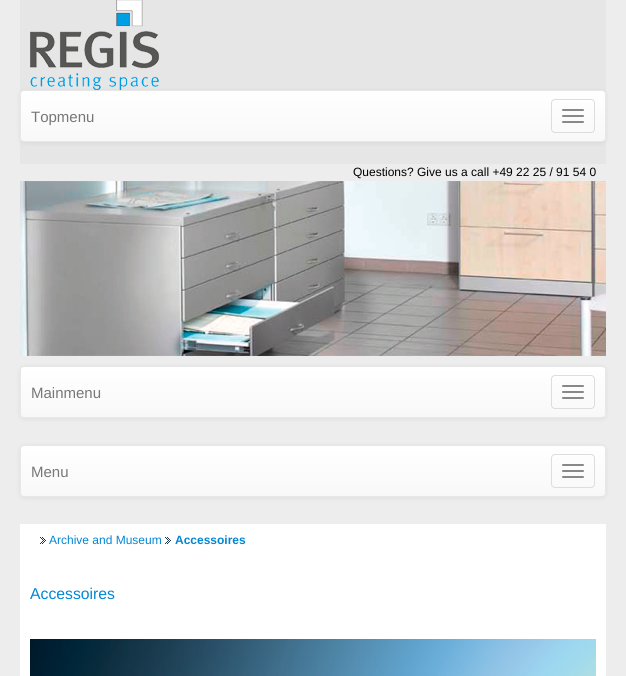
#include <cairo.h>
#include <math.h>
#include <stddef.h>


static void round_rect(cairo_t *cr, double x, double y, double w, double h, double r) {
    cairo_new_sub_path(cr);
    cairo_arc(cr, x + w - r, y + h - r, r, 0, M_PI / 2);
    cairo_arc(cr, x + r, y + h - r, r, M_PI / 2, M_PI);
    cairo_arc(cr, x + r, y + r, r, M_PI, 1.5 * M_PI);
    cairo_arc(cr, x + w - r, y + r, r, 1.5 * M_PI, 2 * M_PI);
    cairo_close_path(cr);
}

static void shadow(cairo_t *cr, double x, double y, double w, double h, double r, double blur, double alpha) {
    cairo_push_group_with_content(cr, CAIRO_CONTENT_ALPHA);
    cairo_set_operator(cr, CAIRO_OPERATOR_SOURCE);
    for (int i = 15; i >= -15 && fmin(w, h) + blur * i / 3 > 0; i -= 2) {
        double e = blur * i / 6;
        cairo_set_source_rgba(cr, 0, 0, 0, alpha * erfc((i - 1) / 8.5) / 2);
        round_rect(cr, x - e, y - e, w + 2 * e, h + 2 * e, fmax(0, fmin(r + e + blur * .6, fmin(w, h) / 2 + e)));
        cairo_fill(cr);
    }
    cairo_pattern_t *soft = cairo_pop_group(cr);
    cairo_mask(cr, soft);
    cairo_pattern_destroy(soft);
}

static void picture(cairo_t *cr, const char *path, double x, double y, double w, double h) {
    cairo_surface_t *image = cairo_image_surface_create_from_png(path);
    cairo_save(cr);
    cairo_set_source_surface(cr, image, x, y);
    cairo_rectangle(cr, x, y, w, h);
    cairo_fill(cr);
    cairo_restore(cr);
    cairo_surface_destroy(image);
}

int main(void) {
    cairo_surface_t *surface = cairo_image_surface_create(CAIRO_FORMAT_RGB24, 626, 676);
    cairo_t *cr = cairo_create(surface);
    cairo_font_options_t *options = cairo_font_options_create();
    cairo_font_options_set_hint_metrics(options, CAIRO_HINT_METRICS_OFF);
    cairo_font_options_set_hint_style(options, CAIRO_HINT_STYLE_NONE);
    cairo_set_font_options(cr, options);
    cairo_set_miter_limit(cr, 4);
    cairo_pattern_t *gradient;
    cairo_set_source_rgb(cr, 0.929, 0.929, 0.929);
    cairo_paint(cr);
    cairo_set_source_rgb(cr, 0.902, 0.902, 0.902);
    cairo_rectangle(cr, 20, 0, 586, 164);
    cairo_fill(cr);
    picture(cr, "img1.png", 30, 0, 129, 90);
    cairo_set_source_rgb(cr, 0, 0, 0);
    shadow(cr, 20, 91, 586, 52, 4, 2.5, 0.07);
    cairo_save(cr);
    round_rect(cr, 20, 90, 586, 52, 4);
    cairo_clip(cr);
    gradient = cairo_pattern_create_linear(313, 91, 313, 141);
    cairo_pattern_add_color_stop_rgba(gradient, 0, 1, 1, 1, 1);
    cairo_pattern_add_color_stop_rgba(gradient, 1, 0.973, 0.973, 0.973, 1);
    cairo_set_source(cr, gradient);
    cairo_pattern_destroy(gradient);
    cairo_rectangle(cr, 20, 91, 586, 50);
    cairo_fill(cr);
    cairo_restore(cr);
    round_rect(cr, 20.5, 90.5, 585, 51, 3.5);
    cairo_set_source_rgb(cr, 0.906, 0.906, 0.906);
    cairo_set_line_width(cr, 1);
    cairo_stroke(cr);
    cairo_select_font_face(cr, "Liberation Sans", CAIRO_FONT_SLANT_NORMAL, CAIRO_FONT_WEIGHT_NORMAL);
    cairo_set_font_size(cr, 15);
    cairo_set_source_rgb(cr, 0.467, 0.467, 0.467);
    cairo_move_to(cr, 31, 122);
    cairo_show_text(cr, "Topmenu");
    round_rect(cr, 551.5, 99.5, 43, 33, 3.5);
    cairo_set_source_rgb(cr, 0.867, 0.867, 0.867);
    cairo_stroke(cr);
    cairo_set_source_rgb(cr, 0.533, 0.533, 0.533);
    round_rect(cr, 562, 109, 22, 2, 1);
    cairo_fill(cr);
    round_rect(cr, 562, 115, 22, 2, 1);
    cairo_fill(cr);
    round_rect(cr, 562, 121, 22, 2, 1);
    cairo_fill(cr);
    cairo_set_font_size(cr, 12);
    cairo_set_source_rgb(cr, 0, 0, 0);
    cairo_move_to(cr, 353, 176);
    cairo_show_text(cr, "Questions? Give us a call +49 22 25 / 91 54 0");
    picture(cr, "img2.png", 20, 181, 586, 175);
    cairo_set_source_rgb(cr, 0, 0, 0);
    shadow(cr, 20, 367, 586, 52, 4, 2.5, 0.07);
    cairo_save(cr);
    round_rect(cr, 20, 366, 586, 52, 4);
    cairo_clip(cr);
    gradient = cairo_pattern_create_linear(313, 367, 313, 417);
    cairo_pattern_add_color_stop_rgba(gradient, 0, 1, 1, 1, 1);
    cairo_pattern_add_color_stop_rgba(gradient, 1, 0.973, 0.973, 0.973, 1);
    cairo_set_source(cr, gradient);
    cairo_pattern_destroy(gradient);
    cairo_rectangle(cr, 20, 367, 586, 50);
    cairo_fill(cr);
    cairo_restore(cr);
    round_rect(cr, 20.5, 366.5, 585, 51, 3.5);
    cairo_set_source_rgb(cr, 0.906, 0.906, 0.906);
    cairo_stroke(cr);
    cairo_set_font_size(cr, 15);
    cairo_set_source_rgb(cr, 0.467, 0.467, 0.467);
    cairo_move_to(cr, 31, 398);
    cairo_show_text(cr, "Mainmenu");
    round_rect(cr, 551.5, 375.5, 43, 33, 3.5);
    cairo_set_source_rgb(cr, 0.867, 0.867, 0.867);
    cairo_stroke(cr);
    cairo_set_source_rgb(cr, 0.533, 0.533, 0.533);
    round_rect(cr, 562, 385, 22, 2, 1);
    cairo_fill(cr);
    round_rect(cr, 562, 391, 22, 2, 1);
    cairo_fill(cr);
    round_rect(cr, 562, 397, 22, 2, 1);
    cairo_fill(cr);
    cairo_set_source_rgb(cr, 0, 0, 0);
    shadow(cr, 20, 446, 586, 52, 4, 2.5, 0.07);
    cairo_save(cr);
    round_rect(cr, 20, 445, 586, 52, 4);
    cairo_clip(cr);
    gradient = cairo_pattern_create_linear(313, 446, 313, 496);
    cairo_pattern_add_color_stop_rgba(gradient, 0, 1, 1, 1, 1);
    cairo_pattern_add_color_stop_rgba(gradient, 1, 0.973, 0.973, 0.973, 1);
    cairo_set_source(cr, gradient);
    cairo_pattern_destroy(gradient);
    cairo_rectangle(cr, 20, 446, 586, 50);
    cairo_fill(cr);
    cairo_restore(cr);
    round_rect(cr, 20.5, 445.5, 585, 51, 3.5);
    cairo_set_source_rgb(cr, 0.906, 0.906, 0.906);
    cairo_stroke(cr);
    cairo_set_source_rgb(cr, 0.467, 0.467, 0.467);
    cairo_move_to(cr, 31, 477);
    cairo_show_text(cr, "Menu");
    round_rect(cr, 551.5, 454.5, 43, 33, 3.5);
    cairo_set_source_rgb(cr, 0.867, 0.867, 0.867);
    cairo_stroke(cr);
    cairo_set_source_rgb(cr, 0.533, 0.533, 0.533);
    round_rect(cr, 562, 464, 22, 2, 1);
    cairo_fill(cr);
    round_rect(cr, 562, 470, 22, 2, 1);
    cairo_fill(cr);
    round_rect(cr, 562, 476, 22, 2, 1);
    cairo_fill(cr);
    cairo_set_source_rgb(cr, 1, 1, 1);
    cairo_rectangle(cr, 20, 524, 586, 152);
    cairo_fill(cr);
    picture(cr, "img3.png", 40, 537, 6, 7);
    cairo_set_font_size(cr, 12);
    cairo_set_source_rgb(cr, 0, 0.529, 0.831);
    cairo_move_to(cr, 49, 544);
    cairo_show_text(cr, "Archive and Museum");
    picture(cr, "img3.png", 165, 537, 6, 7);
    cairo_select_font_face(cr, "Liberation Sans", CAIRO_FONT_SLANT_NORMAL, CAIRO_FONT_WEIGHT_BOLD);
    cairo_move_to(cr, 175, 544);
    cairo_show_text(cr, "Accessoires");
    cairo_select_font_face(cr, "Liberation Sans", CAIRO_FONT_SLANT_NORMAL, CAIRO_FONT_WEIGHT_NORMAL);
    cairo_set_font_size(cr, 15.75);
    cairo_move_to(cr, 30, 599);
    cairo_show_text(cr, "Accessoires");
    picture(cr, "img4.png", 30, 639, 566, 37);
    cairo_surface_write_to_png(surface, "page.png");
    cairo_font_options_destroy(options);
    cairo_destroy(cr);
    cairo_surface_destroy(surface);
    return 0;
}
